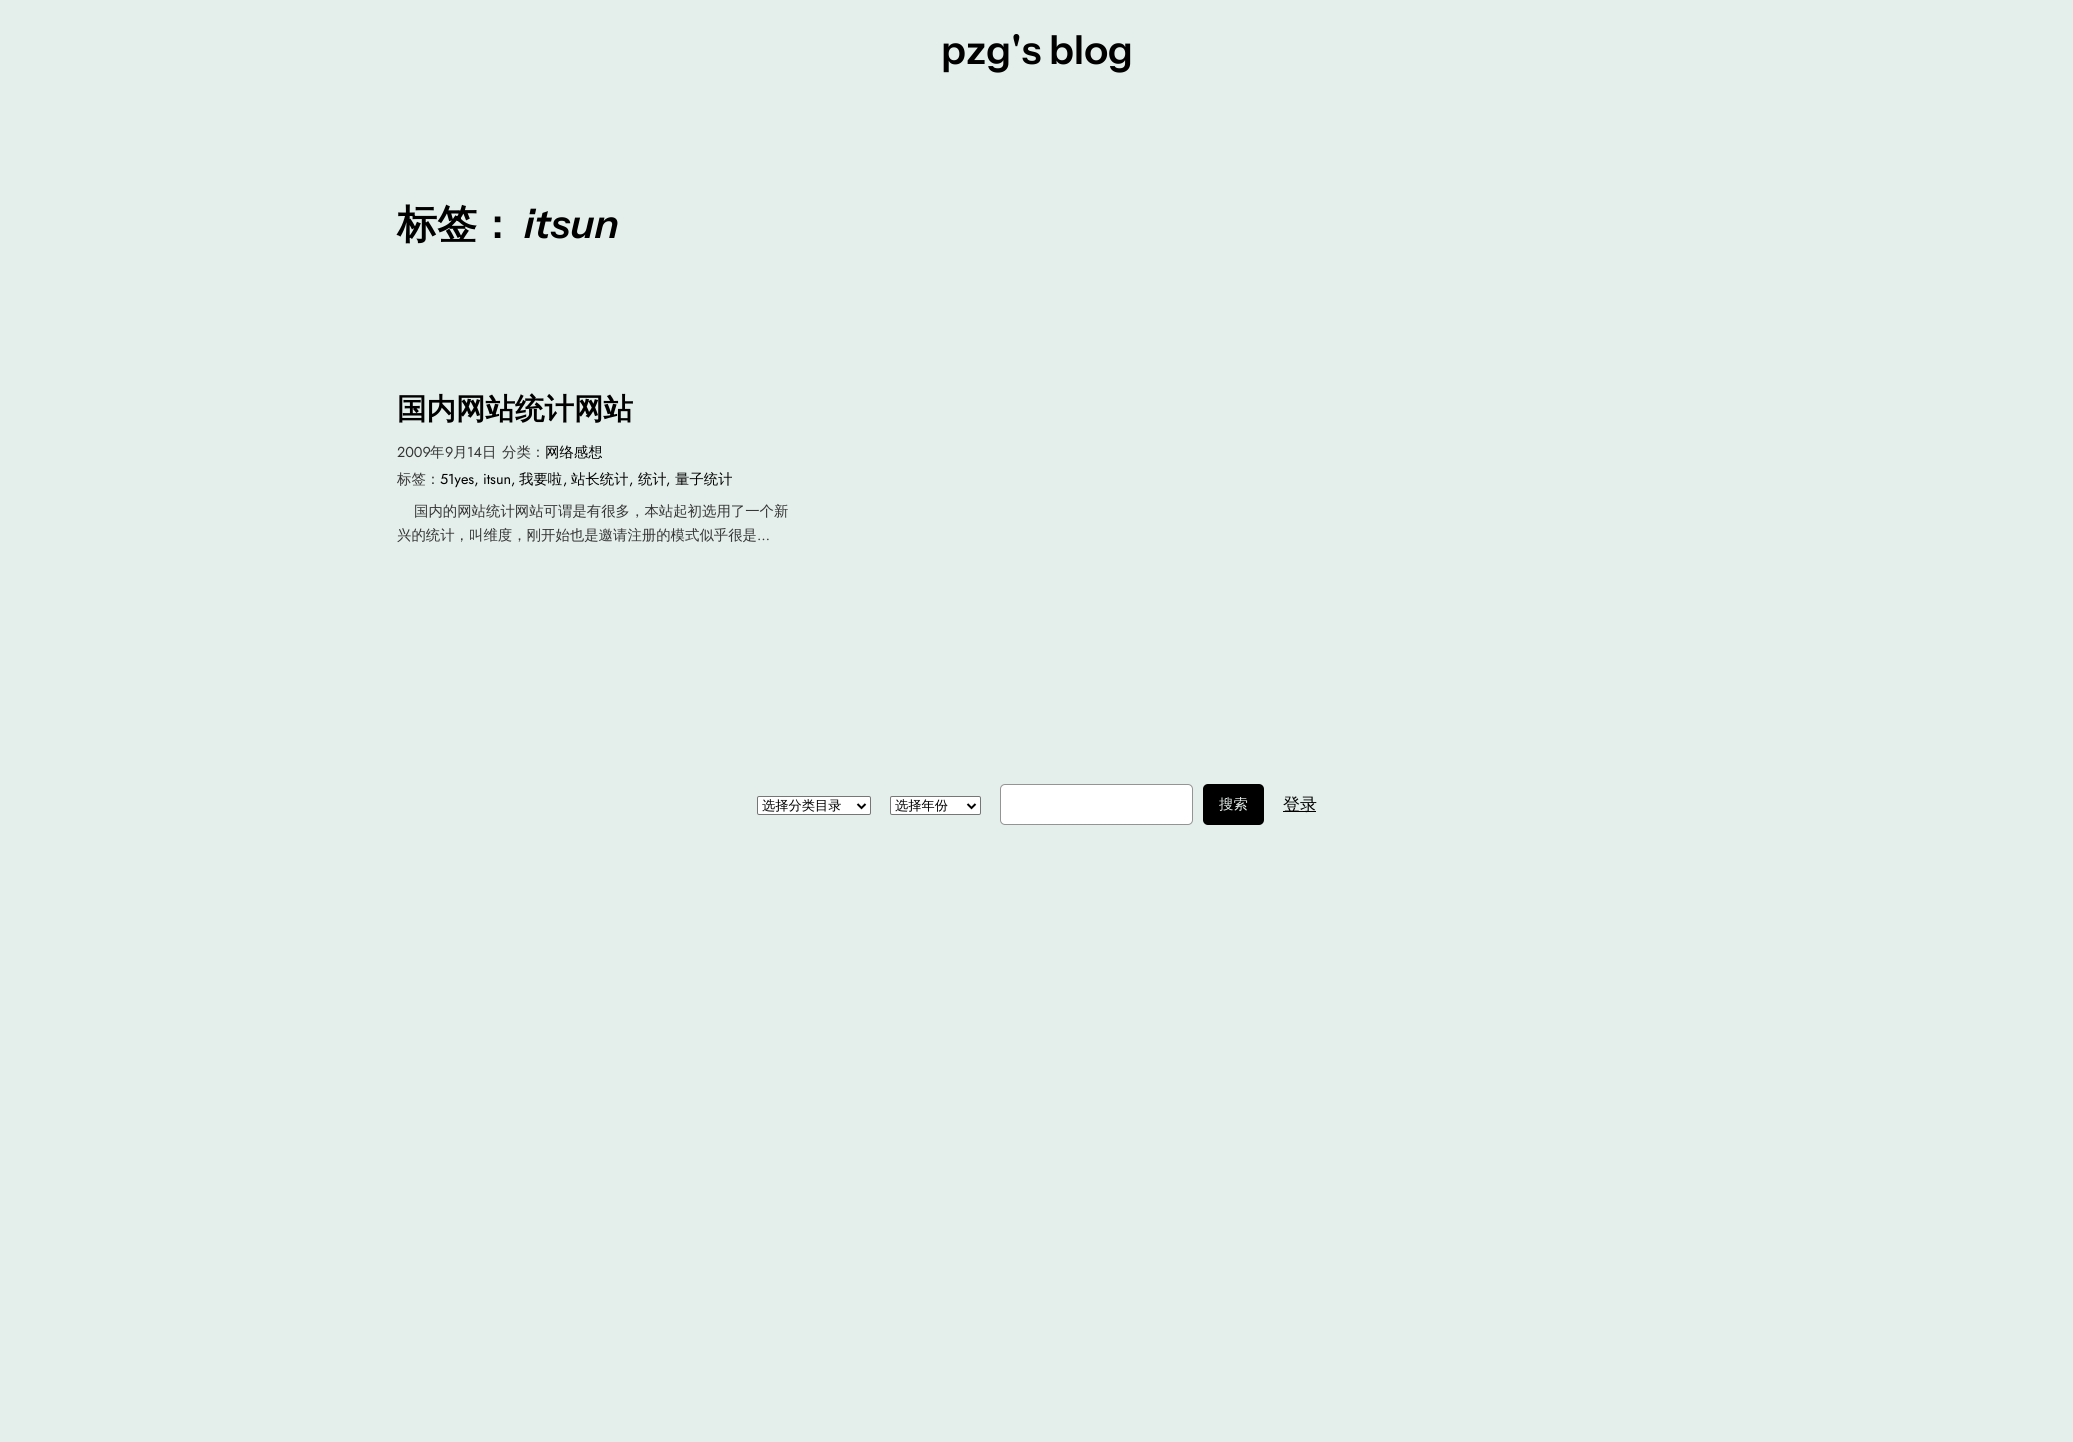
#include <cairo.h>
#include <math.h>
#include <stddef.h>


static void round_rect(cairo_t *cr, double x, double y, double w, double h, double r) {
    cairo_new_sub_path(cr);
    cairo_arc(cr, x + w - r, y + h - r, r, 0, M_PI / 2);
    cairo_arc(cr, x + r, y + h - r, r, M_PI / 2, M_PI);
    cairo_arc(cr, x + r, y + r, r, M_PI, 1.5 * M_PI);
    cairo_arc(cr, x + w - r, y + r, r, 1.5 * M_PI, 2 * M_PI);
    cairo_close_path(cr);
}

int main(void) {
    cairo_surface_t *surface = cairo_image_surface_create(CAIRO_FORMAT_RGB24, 2073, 1442);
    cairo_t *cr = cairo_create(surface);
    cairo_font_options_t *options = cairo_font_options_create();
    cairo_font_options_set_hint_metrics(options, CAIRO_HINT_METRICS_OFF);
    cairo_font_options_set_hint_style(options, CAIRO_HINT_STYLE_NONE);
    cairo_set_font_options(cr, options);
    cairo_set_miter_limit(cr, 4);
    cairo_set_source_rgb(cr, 0.894, 0.937, 0.922);
    cairo_paint(cr);
    cairo_select_font_face(cr, "Instrument Sans SemiBold", CAIRO_FONT_SLANT_NORMAL, CAIRO_FONT_WEIGHT_NORMAL);
    cairo_set_font_size(cr, 40);
    cairo_set_source_rgb(cr, 0, 0, 0);
    cairo_move_to(cr, 941, 64);
    cairo_show_text(cr, "pzg's blog");
    cairo_select_font_face(cr, "WenQuanYi Zen Hei", CAIRO_FONT_SLANT_NORMAL, CAIRO_FONT_WEIGHT_BOLD);
    cairo_move_to(cr, 397, 238);
    cairo_show_text(cr, "标签：");
    cairo_select_font_face(cr, "Instrument Sans SemiBold", CAIRO_FONT_SLANT_ITALIC, CAIRO_FONT_WEIGHT_NORMAL);
    cairo_move_to(cr, 524, 238);
    cairo_show_text(cr, "itsun");
    cairo_select_font_face(cr, "WenQuanYi Zen Hei", CAIRO_FONT_SLANT_NORMAL, CAIRO_FONT_WEIGHT_BOLD);
    cairo_set_font_size(cr, 29.5);
    cairo_move_to(cr, 397, 419);
    cairo_show_text(cr, "国内网站统计网站");
    cairo_select_font_face(cr, "Jost", CAIRO_FONT_SLANT_NORMAL, CAIRO_FONT_WEIGHT_NORMAL);
    cairo_set_font_size(cr, 14.4);
    cairo_set_source_rgb(cr, 0.208, 0.208, 0.208);
    cairo_move_to(cr, 397, 457);
    cairo_show_text(cr, "2009");
    cairo_select_font_face(cr, "WenQuanYi Zen Hei Medium", CAIRO_FONT_SLANT_NORMAL, CAIRO_FONT_WEIGHT_NORMAL);
    cairo_move_to(cr, 430, 457);
    cairo_show_text(cr, "年");
    cairo_select_font_face(cr, "Jost", CAIRO_FONT_SLANT_NORMAL, CAIRO_FONT_WEIGHT_NORMAL);
    cairo_move_to(cr, 445, 457);
    cairo_show_text(cr, "9");
    cairo_select_font_face(cr, "WenQuanYi Zen Hei Medium", CAIRO_FONT_SLANT_NORMAL, CAIRO_FONT_WEIGHT_NORMAL);
    cairo_move_to(cr, 453, 457);
    cairo_show_text(cr, "月");
    cairo_select_font_face(cr, "Jost", CAIRO_FONT_SLANT_NORMAL, CAIRO_FONT_WEIGHT_NORMAL);
    cairo_move_to(cr, 467, 457);
    cairo_show_text(cr, "14");
    cairo_select_font_face(cr, "WenQuanYi Zen Hei Medium", CAIRO_FONT_SLANT_NORMAL, CAIRO_FONT_WEIGHT_NORMAL);
    cairo_move_to(cr, 482, 457);
    cairo_show_text(cr, "日");
    cairo_move_to(cr, 502, 457);
    cairo_show_text(cr, "分类：");
    cairo_set_source_rgb(cr, 0, 0, 0);
    cairo_move_to(cr, 545, 457);
    cairo_show_text(cr, "网络感想");
    cairo_set_source_rgb(cr, 0.208, 0.208, 0.208);
    cairo_move_to(cr, 397, 484);
    cairo_show_text(cr, "标签：");
    cairo_select_font_face(cr, "Jost", CAIRO_FONT_SLANT_NORMAL, CAIRO_FONT_WEIGHT_NORMAL);
    cairo_set_source_rgb(cr, 0, 0, 0);
    cairo_move_to(cr, 440, 484);
    cairo_show_text(cr, "51yes, itsun,");
    cairo_select_font_face(cr, "WenQuanYi Zen Hei Medium", CAIRO_FONT_SLANT_NORMAL, CAIRO_FONT_WEIGHT_NORMAL);
    cairo_move_to(cr, 519, 484);
    cairo_show_text(cr, "我要啦");
    cairo_select_font_face(cr, "Jost", CAIRO_FONT_SLANT_NORMAL, CAIRO_FONT_WEIGHT_NORMAL);
    cairo_move_to(cr, 563, 484);
    cairo_show_text(cr, ",");
    cairo_select_font_face(cr, "WenQuanYi Zen Hei Medium", CAIRO_FONT_SLANT_NORMAL, CAIRO_FONT_WEIGHT_NORMAL);
    cairo_move_to(cr, 571, 484);
    cairo_show_text(cr, "站长统计");
    cairo_select_font_face(cr, "Jost", CAIRO_FONT_SLANT_NORMAL, CAIRO_FONT_WEIGHT_NORMAL);
    cairo_move_to(cr, 629, 484);
    cairo_show_text(cr, ",");
    cairo_select_font_face(cr, "WenQuanYi Zen Hei Medium", CAIRO_FONT_SLANT_NORMAL, CAIRO_FONT_WEIGHT_NORMAL);
    cairo_move_to(cr, 638, 484);
    cairo_show_text(cr, "统计");
    cairo_select_font_face(cr, "Jost", CAIRO_FONT_SLANT_NORMAL, CAIRO_FONT_WEIGHT_NORMAL);
    cairo_move_to(cr, 666, 484);
    cairo_show_text(cr, ",");
    cairo_select_font_face(cr, "WenQuanYi Zen Hei Medium", CAIRO_FONT_SLANT_NORMAL, CAIRO_FONT_WEIGHT_NORMAL);
    cairo_move_to(cr, 675, 484);
    cairo_show_text(cr, "量子统计");
    cairo_set_source_rgb(cr, 0.208, 0.208, 0.208);
    cairo_move_to(cr, 414, 516);
    cairo_show_text(cr, "国内的网站统计网站可谓是有很多，本站起初选用了一个新");
    cairo_move_to(cr, 397, 540);
    cairo_show_text(cr, "兴的统计，叫维度，刚开始也是邀请注册的模式似乎很是");
    cairo_select_font_face(cr, "Jost", CAIRO_FONT_SLANT_NORMAL, CAIRO_FONT_WEIGHT_NORMAL);
    cairo_move_to(cr, 757, 540);
    cairo_show_text(cr, "…");
    cairo_set_source_rgb(cr, 1, 1, 1);
    round_rect(cr, 757.5, 796.5, 113, 18, 1.5);
    cairo_fill_preserve(cr);
    cairo_set_source_rgb(cr, 0.463, 0.463, 0.463);
    cairo_set_line_width(cr, 1);
    cairo_stroke(cr);
    cairo_new_path(cr);
    cairo_move_to(cr, 857.5, 804);
    cairo_line_to(cr, 861.5, 808);
    cairo_line_to(cr, 865.5, 804);
    cairo_set_source_rgb(cr, 0, 0, 0);
    cairo_set_line_width(cr, 2);
    cairo_stroke(cr);
    cairo_select_font_face(cr, "WenQuanYi Zen Hei Medium", CAIRO_FONT_SLANT_NORMAL, CAIRO_FONT_WEIGHT_NORMAL);
    cairo_set_font_size(cr, 13.25);
    cairo_move_to(cr, 762, 810);
    cairo_show_text(cr, "选择分类目录");
    cairo_set_source_rgb(cr, 1, 1, 1);
    round_rect(cr, 890.5, 796.5, 90, 18, 1.5);
    cairo_fill_preserve(cr);
    cairo_set_source_rgb(cr, 0.463, 0.463, 0.463);
    cairo_set_line_width(cr, 1);
    cairo_stroke(cr);
    cairo_new_path(cr);
    cairo_move_to(cr, 967.5, 804);
    cairo_line_to(cr, 971.5, 808);
    cairo_line_to(cr, 975.5, 804);
    cairo_set_source_rgb(cr, 0, 0, 0);
    cairo_set_line_width(cr, 2);
    cairo_stroke(cr);
    cairo_move_to(cr, 895, 810);
    cairo_show_text(cr, "选择年份");
    cairo_set_source_rgb(cr, 1, 1, 1);
    round_rect(cr, 1000.5, 784.5, 192, 40, 4.5);
    cairo_fill_preserve(cr);
    cairo_set_source_rgb(cr, 0.58, 0.58, 0.58);
    cairo_set_line_width(cr, 1);
    cairo_stroke(cr);
    cairo_set_source_rgb(cr, 0, 0, 0);
    round_rect(cr, 1203, 784, 61, 41, 5);
    cairo_fill(cr);
    cairo_set_font_size(cr, 14.4);
    cairo_set_source_rgb(cr, 0.894, 0.937, 0.922);
    cairo_move_to(cr, 1219, 809);
    cairo_show_text(cr, "搜索");
    cairo_set_source_rgb(cr, 0, 0, 0);
    cairo_rectangle(cr, 1283, 811, 33, 1);
    cairo_fill(cr);
    cairo_set_font_size(cr, 17);
    cairo_move_to(cr, 1283, 810);
    cairo_show_text(cr, "登录");
    cairo_surface_write_to_png(surface, "page.png");
    cairo_font_options_destroy(options);
    cairo_destroy(cr);
    cairo_surface_destroy(surface);
    return 0;
}
